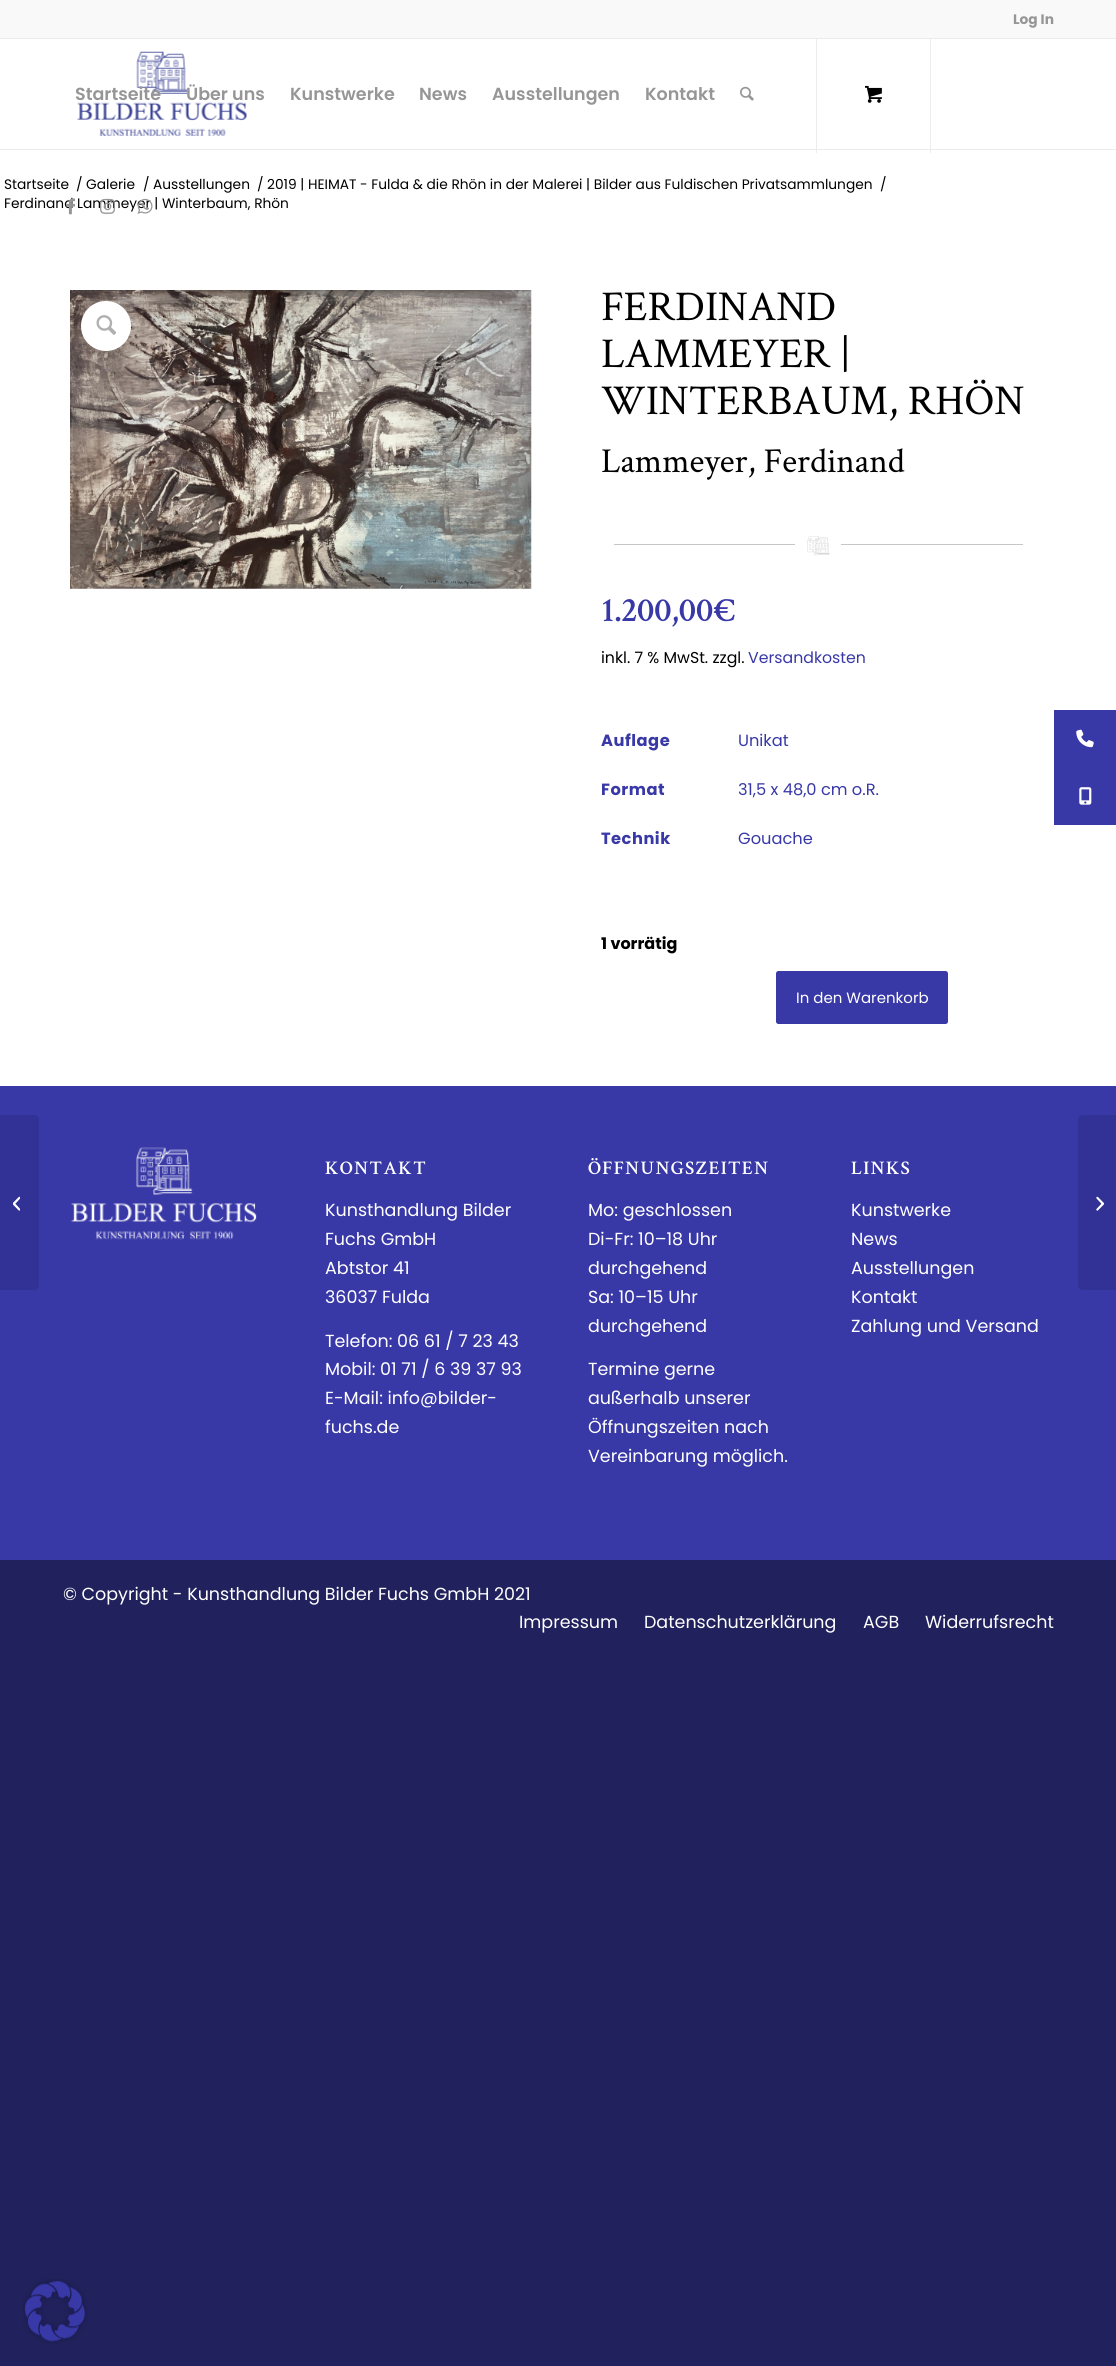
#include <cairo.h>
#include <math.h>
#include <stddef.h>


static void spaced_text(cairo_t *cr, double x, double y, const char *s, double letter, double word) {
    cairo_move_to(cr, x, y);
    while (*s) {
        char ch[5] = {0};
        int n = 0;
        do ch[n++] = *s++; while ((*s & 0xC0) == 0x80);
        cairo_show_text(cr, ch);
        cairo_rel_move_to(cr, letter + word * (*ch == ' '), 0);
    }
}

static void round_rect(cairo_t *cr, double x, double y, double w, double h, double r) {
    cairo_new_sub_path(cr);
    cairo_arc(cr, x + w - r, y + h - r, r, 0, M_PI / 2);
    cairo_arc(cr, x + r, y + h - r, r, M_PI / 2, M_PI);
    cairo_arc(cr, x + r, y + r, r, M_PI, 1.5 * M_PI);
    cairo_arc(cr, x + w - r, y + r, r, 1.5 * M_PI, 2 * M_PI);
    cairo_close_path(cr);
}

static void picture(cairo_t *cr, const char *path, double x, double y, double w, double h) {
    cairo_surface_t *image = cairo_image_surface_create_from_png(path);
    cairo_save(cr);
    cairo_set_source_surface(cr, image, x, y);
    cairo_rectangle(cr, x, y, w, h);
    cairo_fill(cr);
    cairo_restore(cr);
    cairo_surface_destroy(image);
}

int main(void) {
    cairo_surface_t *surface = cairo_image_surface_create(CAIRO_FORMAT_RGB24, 1116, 2366);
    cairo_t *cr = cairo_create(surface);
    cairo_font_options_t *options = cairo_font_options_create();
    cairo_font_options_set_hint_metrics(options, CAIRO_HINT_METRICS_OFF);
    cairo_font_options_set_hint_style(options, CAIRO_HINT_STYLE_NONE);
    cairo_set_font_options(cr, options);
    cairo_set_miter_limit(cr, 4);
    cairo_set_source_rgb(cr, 0.129, 0.129, 0.365);
    cairo_paint(cr);
    cairo_set_source_rgb(cr, 1, 1, 1);
    cairo_rectangle(cr, 0, 39, 1116, 1047);
    cairo_fill(cr);
    cairo_set_source_rgb(cr, 0.973, 0.973, 0.973);
    cairo_rectangle(cr, 0, 0, 1116, 38);
    cairo_fill(cr);
    cairo_set_source_rgb(cr, 0.922, 0.922, 0.922);
    cairo_rectangle(cr, 0, 38, 1116, 1);
    cairo_fill(cr);
    cairo_select_font_face(cr, "Poppins", CAIRO_FONT_SLANT_NORMAL, CAIRO_FONT_WEIGHT_BOLD);
    cairo_set_font_size(cr, 13.75);
    cairo_set_source_rgb(cr, 0.588, 0.588, 0.588);
    cairo_move_to(cr, 1013, 24);
    cairo_show_text(cr, "Log In");
    cairo_set_source_rgb(cr, 0.922, 0.922, 0.922);
    cairo_rectangle(cr, 0, 149, 1116, 1);
    cairo_fill(cr);
    picture(cr, "img1.png", 77, 51, 170, 85);
    cairo_select_font_face(cr, "Poppins SemiBold", CAIRO_FONT_SLANT_NORMAL, CAIRO_FONT_WEIGHT_NORMAL);
    cairo_set_font_size(cr, 17.5);
    cairo_set_source_rgb(cr, 0.588, 0.588, 0.588);
    cairo_move_to(cr, 75, 100);
    cairo_show_text(cr, "Startseite");
    cairo_move_to(cr, 186, 100);
    cairo_show_text(cr, "Über uns");
    cairo_move_to(cr, 290, 100);
    cairo_show_text(cr, "Kunstwerke");
    cairo_move_to(cr, 419, 100);
    cairo_show_text(cr, "News");
    cairo_move_to(cr, 492, 100);
    cairo_show_text(cr, "Ausstellungen");
    cairo_move_to(cr, 645, 100);
    cairo_show_text(cr, "Kontakt");
    picture(cr, "img2.png", 740, 86, 14, 15);
    cairo_set_source_rgb(cr, 0.922, 0.922, 0.922);
    cairo_rectangle(cr, 930, 39, 1, 114);
    cairo_fill(cr);
    cairo_rectangle(cr, 816, 39, 1, 114);
    cairo_fill(cr);
    picture(cr, "img3.png", 865, 85, 17, 18);
    cairo_select_font_face(cr, "Poppins", CAIRO_FONT_SLANT_NORMAL, CAIRO_FONT_WEIGHT_NORMAL);
    cairo_set_font_size(cr, 13.75);
    cairo_set_source_rgb(cr, 0, 0, 0);
    cairo_move_to(cr, 4, 208);
    cairo_show_text(cr, "Ferdinand Lammeyer | Winterbaum, Rhön");
    picture(cr, "img4.png", 66, 198, 9, 17);
    picture(cr, "img5.png", 100, 198, 15, 16);
    picture(cr, "img6.png", 137, 198, 16, 16);
    cairo_move_to(cr, 4, 189);
    cairo_show_text(cr, "Startseite");
    cairo_move_to(cr, 76, 189);
    cairo_show_text(cr, "/");
    cairo_move_to(cr, 86, 189);
    cairo_show_text(cr, "Galerie");
    cairo_move_to(cr, 143, 189);
    cairo_show_text(cr, "/");
    cairo_move_to(cr, 153, 189);
    cairo_show_text(cr, "Ausstellungen");
    cairo_move_to(cr, 257, 189);
    cairo_show_text(cr, "/");
    cairo_move_to(cr, 267, 189);
    cairo_show_text(cr, "2019 | HEIMAT - Fulda & die Rhön in der Malerei | Bilder aus Fuldischen Privatsammlungen");
    cairo_move_to(cr, 880, 189);
    cairo_show_text(cr, "/");
    cairo_set_source_rgb(cr, 0.22, 0.22, 0.655);
    cairo_rectangle(cr, 0, 1086, 1116, 474);
    cairo_fill(cr);
    cairo_set_source_rgb(cr, 0.196, 0.196, 0.588);
    cairo_new_path(cr);
    cairo_move_to(cr, 0, 1115);
    cairo_line_to(cr, 34, 1115);
    cairo_curve_to(cr, 37, 1115, 39, 1117, 39, 1120);
    cairo_line_to(cr, 39, 1285);
    cairo_curve_to(cr, 39, 1288, 37, 1290, 34, 1290);
    cairo_line_to(cr, 0, 1290);
    cairo_close_path(cr);
    cairo_fill(cr);
    picture(cr, "img7.png", 13, 1196, 7, 15);
    picture(cr, "img8.png", 70, 290, 462, 299);
    cairo_set_source_rgb(cr, 1, 1, 1);
    cairo_arc(cr, 106, 326, 25, 0, 2 * M_PI);
    cairo_fill(cr);
    picture(cr, "img9.png", 96, 315, 21, 20);
    cairo_select_font_face(cr, "Crimson Text", CAIRO_FONT_SLANT_NORMAL, CAIRO_FONT_WEIGHT_NORMAL);
    cairo_set_font_size(cr, 42.5);
    cairo_set_source_rgb(cr, 0, 0, 0);
    cairo_move_to(cr, 601, 320);
    cairo_show_text(cr, "FERDINAND");
    cairo_move_to(cr, 601, 367);
    cairo_show_text(cr, "LAMMEYER |");
    cairo_move_to(cr, 601, 414);
    cairo_show_text(cr, "WINTERBAUM, RHÖN");
    cairo_set_font_size(cr, 35);
    cairo_move_to(cr, 601, 472);
    cairo_show_text(cr, "Lammeyer, Ferdinand");
    cairo_set_source_rgb(cr, 0.776, 0.776, 0.776);
    cairo_rectangle(cr, 614, 544, 181, 1);
    cairo_fill(cr);
    picture(cr, "img10.png", 807, 536, 23, 20);
    cairo_rectangle(cr, 841, 544, 182, 1);
    cairo_fill(cr);
    cairo_select_font_face(cr, "Crimson Text SemiBold", CAIRO_FONT_SLANT_NORMAL, CAIRO_FONT_WEIGHT_NORMAL);
    cairo_set_source_rgb(cr, 0.22, 0.22, 0.655);
    cairo_move_to(cr, 601, 621);
    cairo_show_text(cr, "1.200,00€");
    cairo_select_font_face(cr, "Poppins", CAIRO_FONT_SLANT_NORMAL, CAIRO_FONT_WEIGHT_NORMAL);
    cairo_set_font_size(cr, 15.75);
    cairo_set_source_rgb(cr, 0, 0, 0);
    cairo_move_to(cr, 601, 663);
    cairo_show_text(cr, "inkl. 7 % MwSt. zzgl.");
    cairo_set_source_rgb(cr, 0.22, 0.22, 0.655);
    cairo_move_to(cr, 748, 663);
    cairo_show_text(cr, "Versandkosten");
    cairo_select_font_face(cr, "Poppins", CAIRO_FONT_SLANT_NORMAL, CAIRO_FONT_WEIGHT_BOLD);
    cairo_set_font_size(cr, 16.25);
    spaced_text(cr, 601, 746, "Auflage", 0.5, 0);
    cairo_select_font_face(cr, "Poppins", CAIRO_FONT_SLANT_NORMAL, CAIRO_FONT_WEIGHT_NORMAL);
    cairo_move_to(cr, 738, 746);
    cairo_show_text(cr, "Unikat");
    cairo_select_font_face(cr, "Poppins", CAIRO_FONT_SLANT_NORMAL, CAIRO_FONT_WEIGHT_BOLD);
    spaced_text(cr, 601, 795, "Format", 0.5, 0);
    cairo_select_font_face(cr, "Poppins", CAIRO_FONT_SLANT_NORMAL, CAIRO_FONT_WEIGHT_NORMAL);
    cairo_move_to(cr, 738, 795);
    cairo_show_text(cr, "31,5 x 48,0 cm o.R.");
    cairo_select_font_face(cr, "Poppins", CAIRO_FONT_SLANT_NORMAL, CAIRO_FONT_WEIGHT_BOLD);
    spaced_text(cr, 601, 844, "Technik", 0.5, 0);
    cairo_select_font_face(cr, "Poppins", CAIRO_FONT_SLANT_NORMAL, CAIRO_FONT_WEIGHT_NORMAL);
    cairo_move_to(cr, 738, 844);
    cairo_show_text(cr, "Gouache");
    cairo_select_font_face(cr, "Poppins", CAIRO_FONT_SLANT_NORMAL, CAIRO_FONT_WEIGHT_BOLD);
    cairo_set_font_size(cr, 16);
    cairo_set_source_rgb(cr, 0, 0, 0);
    cairo_move_to(cr, 601, 949);
    cairo_show_text(cr, "1 vorrätig");
    cairo_set_source_rgb(cr, 0.22, 0.22, 0.655);
    round_rect(cr, 776, 971, 172, 53, 2.5);
    cairo_fill(cr);
    cairo_select_font_face(cr, "Poppins", CAIRO_FONT_SLANT_NORMAL, CAIRO_FONT_WEIGHT_NORMAL);
    cairo_set_font_size(cr, 15);
    cairo_set_source_rgb(cr, 1, 1, 1);
    cairo_move_to(cr, 796, 1003);
    cairo_show_text(cr, "In den Warenkorb");
    picture(cr, "img11.png", 71, 1147, 186, 93);
    cairo_select_font_face(cr, "Crimson Text SemiBold", CAIRO_FONT_SLANT_NORMAL, CAIRO_FONT_WEIGHT_NORMAL);
    cairo_set_font_size(cr, 19.25);
    spaced_text(cr, 325, 1174, "KONTAKT", 1.25, 0);
    cairo_select_font_face(cr, "Poppins", CAIRO_FONT_SLANT_NORMAL, CAIRO_FONT_WEIGHT_NORMAL);
    cairo_set_font_size(cr, 17.5);
    cairo_move_to(cr, 325, 1216);
    cairo_show_text(cr, "Kunsthandlung Bilder");
    cairo_move_to(cr, 325, 1245);
    cairo_show_text(cr, "Fuchs GmbH");
    cairo_move_to(cr, 325, 1274);
    cairo_show_text(cr, "Abtstor 41");
    cairo_move_to(cr, 325, 1303);
    cairo_show_text(cr, "36037 Fulda");
    cairo_move_to(cr, 325, 1347);
    cairo_show_text(cr, "Telefon: 06 61 / 7 23 43");
    cairo_move_to(cr, 325, 1375);
    cairo_show_text(cr, "Mobil: 01 71 / 6 39 37 93");
    cairo_move_to(cr, 325, 1404);
    cairo_show_text(cr, "E-Mail: info@bilder-");
    cairo_move_to(cr, 325, 1433);
    cairo_show_text(cr, "fuchs.de");
    cairo_select_font_face(cr, "Crimson Text SemiBold", CAIRO_FONT_SLANT_NORMAL, CAIRO_FONT_WEIGHT_NORMAL);
    cairo_set_font_size(cr, 19.25);
    spaced_text(cr, 588, 1174, "ÖFFNUNGSZEITEN", 1.25, 0);
    cairo_select_font_face(cr, "Poppins", CAIRO_FONT_SLANT_NORMAL, CAIRO_FONT_WEIGHT_NORMAL);
    cairo_set_font_size(cr, 17.5);
    cairo_move_to(cr, 588, 1216);
    cairo_show_text(cr, "Mo: geschlossen");
    cairo_move_to(cr, 588, 1245);
    cairo_show_text(cr, "Di-Fr: 10–18 Uhr");
    cairo_move_to(cr, 588, 1274);
    cairo_show_text(cr, "durchgehend");
    cairo_move_to(cr, 588, 1303);
    cairo_show_text(cr, "Sa: 10–15 Uhr");
    cairo_move_to(cr, 588, 1332);
    cairo_show_text(cr, "durchgehend");
    cairo_move_to(cr, 588, 1375);
    cairo_show_text(cr, "Termine gerne");
    cairo_move_to(cr, 588, 1404);
    cairo_show_text(cr, "außerhalb unserer");
    cairo_move_to(cr, 588, 1433);
    cairo_show_text(cr, "Öffnungszeiten nach");
    cairo_move_to(cr, 588, 1462);
    cairo_show_text(cr, "Vereinbarung möglich.");
    cairo_select_font_face(cr, "Crimson Text SemiBold", CAIRO_FONT_SLANT_NORMAL, CAIRO_FONT_WEIGHT_NORMAL);
    cairo_set_font_size(cr, 19.25);
    spaced_text(cr, 851, 1174, "LINKS", 1.25, 0);
    cairo_select_font_face(cr, "Poppins", CAIRO_FONT_SLANT_NORMAL, CAIRO_FONT_WEIGHT_NORMAL);
    cairo_set_font_size(cr, 17.5);
    cairo_move_to(cr, 851, 1216);
    cairo_show_text(cr, "Kunstwerke");
    cairo_move_to(cr, 851, 1245);
    cairo_show_text(cr, "News");
    cairo_move_to(cr, 851, 1274);
    cairo_show_text(cr, "Ausstellungen");
    cairo_move_to(cr, 851, 1303);
    cairo_show_text(cr, "Kontakt");
    cairo_move_to(cr, 851, 1332);
    cairo_show_text(cr, "Zahlung und Versand");
    cairo_move_to(cr, 63, 1600);
    cairo_show_text(cr, "© Copyright - Kunsthandlung Bilder Fuchs GmbH 2021");
    cairo_move_to(cr, 519, 1628);
    cairo_show_text(cr, "Impressum");
    cairo_move_to(cr, 644, 1628);
    cairo_show_text(cr, "Datenschutzerklärung");
    cairo_move_to(cr, 863, 1628);
    cairo_show_text(cr, "AGB");
    cairo_move_to(cr, 925, 1628);
    cairo_show_text(cr, "Widerrufsrecht");
    cairo_set_source_rgb(cr, 0.196, 0.196, 0.588);
    cairo_new_path(cr);
    cairo_move_to(cr, 1083, 1115);
    cairo_line_to(cr, 1116, 1115);
    cairo_line_to(cr, 1116, 1290);
    cairo_line_to(cr, 1083, 1290);
    cairo_curve_to(cr, 1080, 1290, 1078, 1288, 1078, 1285);
    cairo_line_to(cr, 1078, 1120);
    cairo_curve_to(cr, 1078, 1117, 1080, 1115, 1083, 1115);
    cairo_close_path(cr);
    cairo_fill(cr);
    picture(cr, "img12.png", 1096, 1196, 8, 15);
    cairo_set_source_rgb(cr, 0.22, 0.22, 0.655);
    cairo_rectangle(cr, 1054, 710, 62, 115);
    cairo_fill(cr);
    picture(cr, "img13.png", 1076, 729, 18, 19);
    picture(cr, "img14.png", 1079, 787, 13, 18);
    picture(cr, "img15.png", 22, 2278, 66, 66);
    cairo_surface_write_to_png(surface, "page.png");
    cairo_font_options_destroy(options);
    cairo_destroy(cr);
    cairo_surface_destroy(surface);
    return 0;
}
